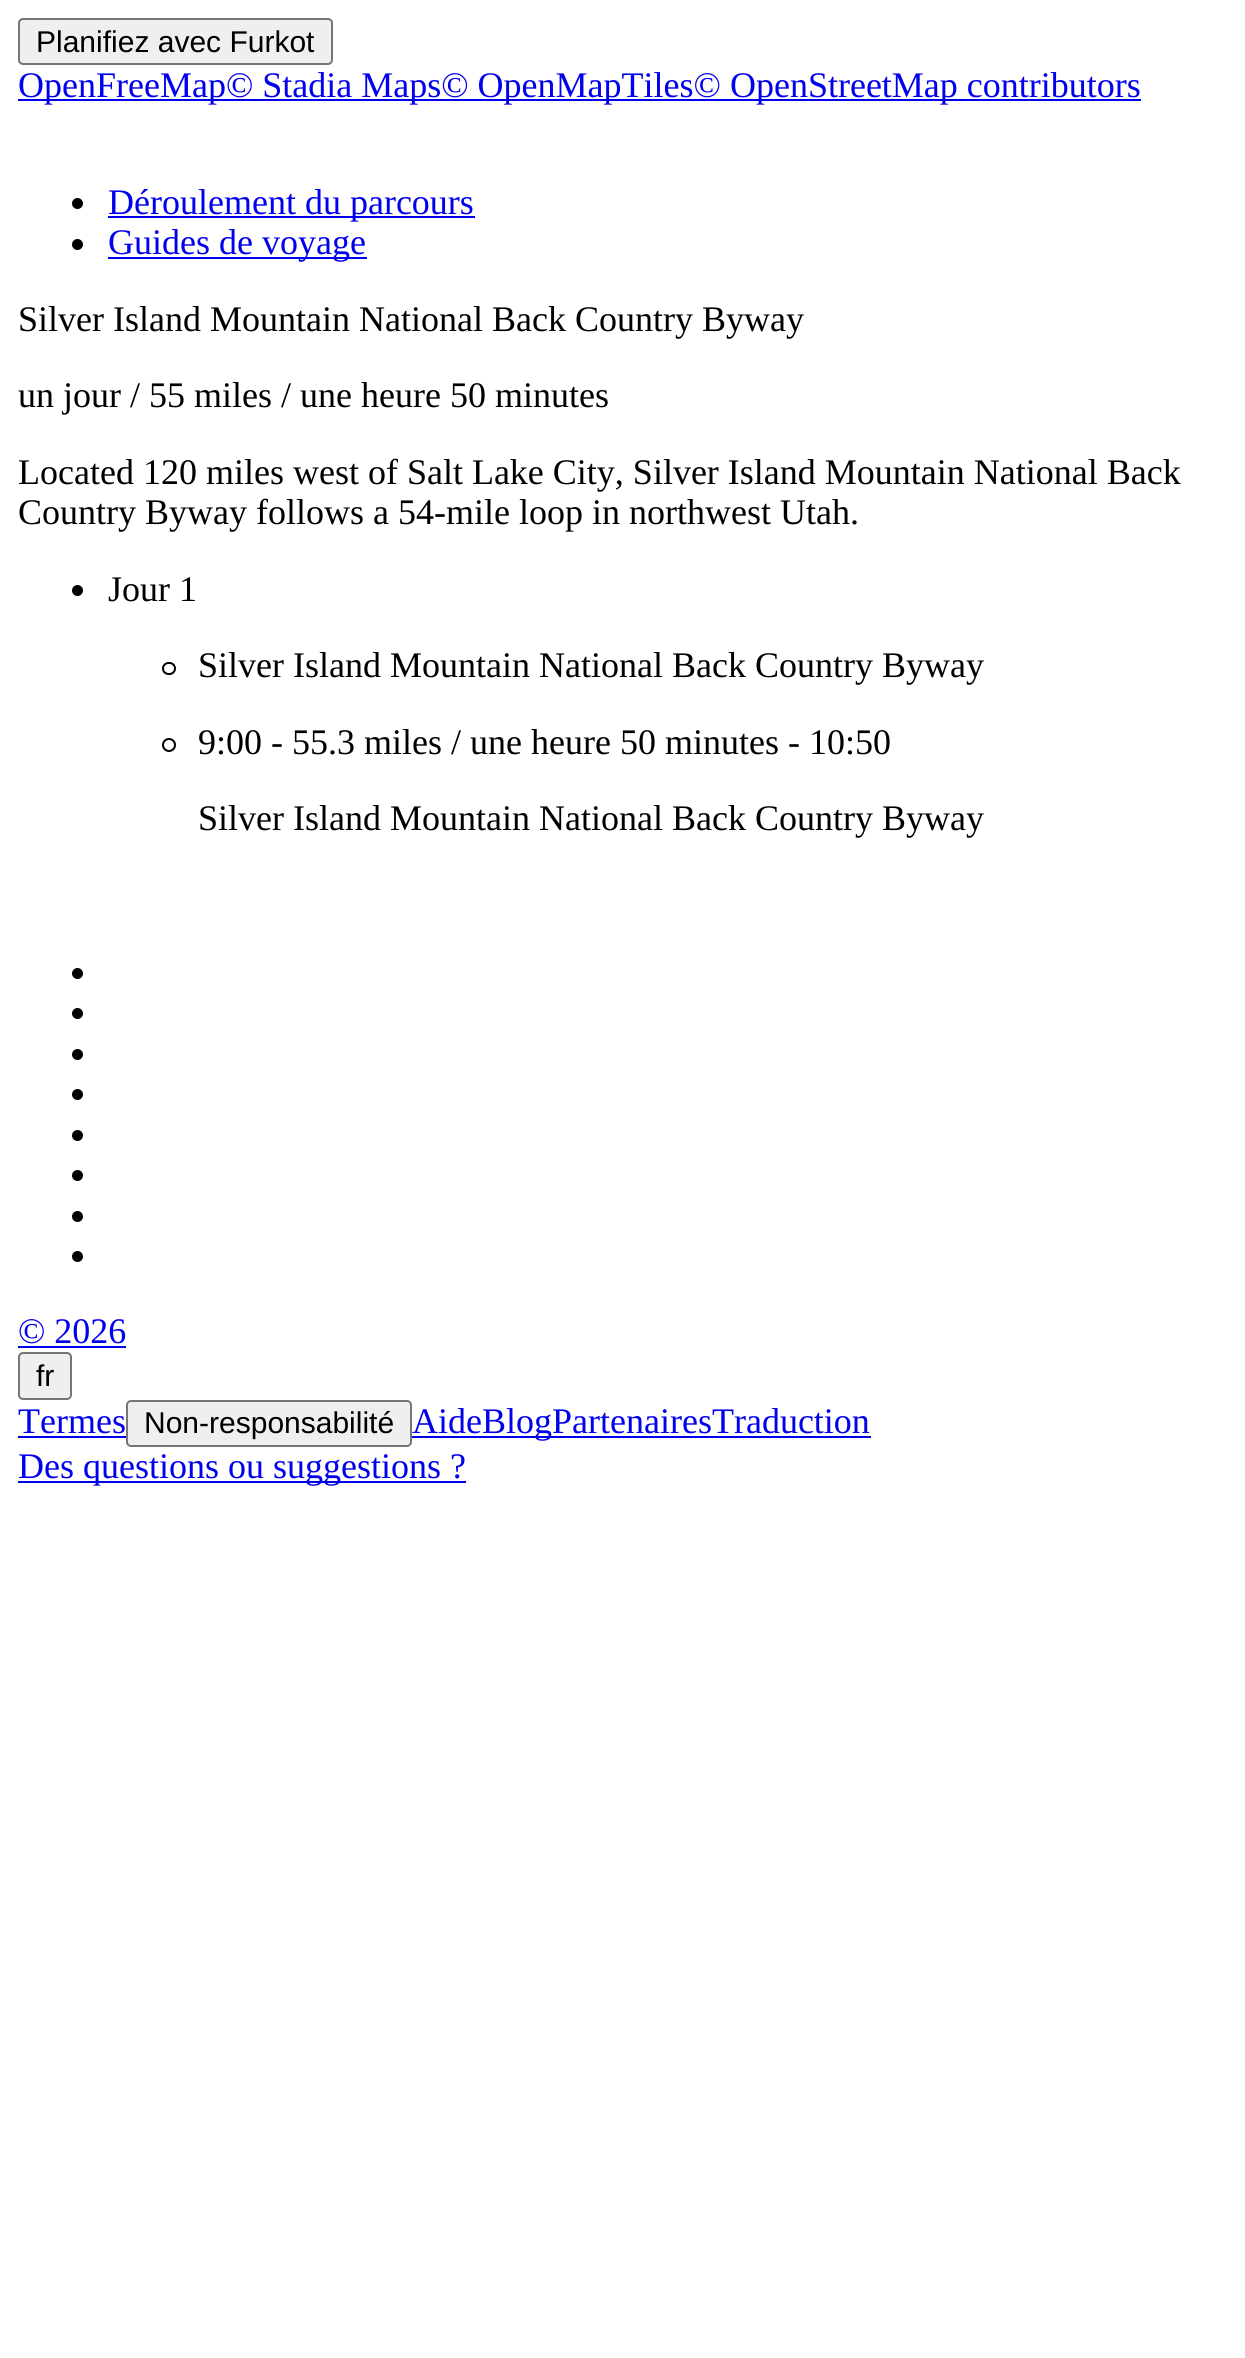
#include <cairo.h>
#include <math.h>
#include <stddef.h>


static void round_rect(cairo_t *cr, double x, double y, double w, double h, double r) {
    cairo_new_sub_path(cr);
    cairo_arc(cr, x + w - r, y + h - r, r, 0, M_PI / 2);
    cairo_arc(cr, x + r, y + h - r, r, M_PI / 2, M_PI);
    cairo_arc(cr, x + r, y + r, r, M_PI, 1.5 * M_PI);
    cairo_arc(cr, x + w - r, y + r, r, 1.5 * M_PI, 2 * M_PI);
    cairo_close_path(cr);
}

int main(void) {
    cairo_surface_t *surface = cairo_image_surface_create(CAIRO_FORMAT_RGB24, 1245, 2358);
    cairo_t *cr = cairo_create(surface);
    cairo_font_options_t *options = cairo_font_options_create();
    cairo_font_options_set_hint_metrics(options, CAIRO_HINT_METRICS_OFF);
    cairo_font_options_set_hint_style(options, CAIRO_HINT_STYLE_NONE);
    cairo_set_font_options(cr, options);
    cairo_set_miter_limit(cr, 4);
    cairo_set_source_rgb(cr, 1, 1, 1);
    cairo_paint(cr);
    cairo_set_source_rgb(cr, 0.937, 0.937, 0.937);
    round_rect(cr, 19, 19, 313, 45, 4);
    cairo_fill_preserve(cr);
    cairo_set_source_rgb(cr, 0.463, 0.463, 0.463);
    cairo_stroke(cr);
    cairo_select_font_face(cr, "Liberation Sans", CAIRO_FONT_SLANT_NORMAL, CAIRO_FONT_WEIGHT_NORMAL);
    cairo_set_font_size(cr, 30);
    cairo_set_source_rgb(cr, 0, 0, 0);
    cairo_move_to(cr, 36, 52);
    cairo_show_text(cr, "Planifiez avec Furkot");
    cairo_set_source_rgb(cr, 0, 0, 0.933);
    cairo_rectangle(cr, 18, 99, 1123, 2);
    cairo_fill(cr);
    cairo_select_font_face(cr, "Liberation Serif", CAIRO_FONT_SLANT_NORMAL, CAIRO_FONT_WEIGHT_NORMAL);
    cairo_set_font_size(cr, 36);
    cairo_move_to(cr, 18, 97);
    cairo_show_text(cr, "OpenFreeMap© Stadia Maps© OpenMapTiles© OpenStreetMap contributors");
    cairo_set_source_rgb(cr, 0, 0, 0);
    cairo_new_path(cr);
    cairo_arc(cr, 77.5, 203.5, 5.5, 0, 2 * M_PI);
    cairo_fill(cr);
    cairo_set_source_rgb(cr, 0, 0, 0.933);
    cairo_rectangle(cr, 108, 216, 367, 2);
    cairo_fill(cr);
    cairo_move_to(cr, 108, 214);
    cairo_show_text(cr, "Déroulement du parcours");
    cairo_set_source_rgb(cr, 0, 0, 0);
    cairo_new_path(cr);
    cairo_arc(cr, 77.5, 244.5, 5.5, 0, 2 * M_PI);
    cairo_fill(cr);
    cairo_set_source_rgb(cr, 0, 0, 0.933);
    cairo_rectangle(cr, 108, 257, 259, 2);
    cairo_fill(cr);
    cairo_move_to(cr, 108, 254);
    cairo_show_text(cr, "Guides de voyage");
    cairo_set_source_rgb(cr, 0, 0, 0);
    cairo_move_to(cr, 18, 331);
    cairo_show_text(cr, "Silver Island Mountain National Back Country Byway");
    cairo_move_to(cr, 18, 407);
    cairo_show_text(cr, "un jour / 55 miles / une heure 50 minutes");
    cairo_move_to(cr, 18, 484);
    cairo_show_text(cr, "Located 120 miles west of Salt Lake City, Silver Island Mountain National Back");
    cairo_move_to(cr, 18, 524);
    cairo_show_text(cr, "Country Byway follows a 54-mile loop in northwest Utah.");
    cairo_new_path(cr);
    cairo_arc(cr, 77.5, 590.5, 5.5, 0, 2 * M_PI);
    cairo_fill(cr);
    cairo_move_to(cr, 108, 601);
    cairo_show_text(cr, "Jour 1");
    round_rect(cr, 163, 663, 12, 11, 5.5);
    cairo_stroke(cr);
    cairo_move_to(cr, 198, 677);
    cairo_show_text(cr, "Silver Island Mountain National Back Country Byway");
    cairo_new_path(cr);
    cairo_arc(cr, 169, 745, 6, 0, 2 * M_PI);
    cairo_stroke(cr);
    cairo_move_to(cr, 198, 754);
    cairo_show_text(cr, "9:00 - 55.3 miles / une heure 50 minutes - 10:50");
    cairo_move_to(cr, 198, 830);
    cairo_show_text(cr, "Silver Island Mountain National Back Country Byway");
    cairo_new_path(cr);
    cairo_arc(cr, 77.5, 973.5, 5.5, 0, 2 * M_PI);
    cairo_fill(cr);
    cairo_arc(cr, 77.5, 1013.5, 5.5, 0, 2 * M_PI);
    cairo_fill(cr);
    cairo_arc(cr, 77.5, 1054.5, 5.5, 0, 2 * M_PI);
    cairo_fill(cr);
    cairo_arc(cr, 77.5, 1094.5, 5.5, 0, 2 * M_PI);
    cairo_fill(cr);
    cairo_arc(cr, 77.5, 1135.5, 5.5, 0, 2 * M_PI);
    cairo_fill(cr);
    cairo_arc(cr, 77.5, 1175.5, 5.5, 0, 2 * M_PI);
    cairo_fill(cr);
    cairo_arc(cr, 77.5, 1216.5, 5.5, 0, 2 * M_PI);
    cairo_fill(cr);
    cairo_arc(cr, 77.5, 1256.5, 5.5, 0, 2 * M_PI);
    cairo_fill(cr);
    cairo_set_source_rgb(cr, 0, 0, 0.933);
    cairo_move_to(cr, 18, 1343);
    cairo_show_text(cr, "© 2026");
    cairo_rectangle(cr, 18, 1346, 108, 2);
    cairo_fill(cr);
    cairo_set_source_rgb(cr, 0.937, 0.937, 0.937);
    round_rect(cr, 19, 1353, 52, 46, 4);
    cairo_fill_preserve(cr);
    cairo_set_source_rgb(cr, 0.463, 0.463, 0.463);
    cairo_stroke(cr);
    cairo_select_font_face(cr, "Liberation Sans", CAIRO_FONT_SLANT_NORMAL, CAIRO_FONT_WEIGHT_NORMAL);
    cairo_set_font_size(cr, 30);
    cairo_set_source_rgb(cr, 0, 0, 0);
    cairo_move_to(cr, 36, 1386);
    cairo_show_text(cr, "fr");
    cairo_select_font_face(cr, "Liberation Serif", CAIRO_FONT_SLANT_NORMAL, CAIRO_FONT_WEIGHT_NORMAL);
    cairo_set_font_size(cr, 36);
    cairo_set_source_rgb(cr, 0, 0, 0.933);
    cairo_move_to(cr, 18, 1433);
    cairo_show_text(cr, "Termes");
    cairo_rectangle(cr, 18, 1436, 108, 2);
    cairo_fill(cr);
    cairo_set_source_rgb(cr, 0.937, 0.937, 0.937);
    round_rect(cr, 127, 1401, 284, 45, 4);
    cairo_fill_preserve(cr);
    cairo_set_source_rgb(cr, 0.463, 0.463, 0.463);
    cairo_stroke(cr);
    cairo_select_font_face(cr, "Liberation Sans", CAIRO_FONT_SLANT_NORMAL, CAIRO_FONT_WEIGHT_NORMAL);
    cairo_set_font_size(cr, 30);
    cairo_set_source_rgb(cr, 0, 0, 0);
    cairo_move_to(cr, 144, 1433);
    cairo_show_text(cr, "Non-responsabilité");
    cairo_set_source_rgb(cr, 0, 0, 0.933);
    cairo_rectangle(cr, 412, 1436, 139, 2);
    cairo_fill(cr);
    cairo_select_font_face(cr, "Liberation Serif", CAIRO_FONT_SLANT_NORMAL, CAIRO_FONT_WEIGHT_NORMAL);
    cairo_set_font_size(cr, 36);
    cairo_move_to(cr, 412, 1433);
    cairo_show_text(cr, "AideBlogPartenairesTraduction");
    cairo_rectangle(cr, 551, 1436, 320, 2);
    cairo_fill(cr);
    cairo_rectangle(cr, 18, 1481, 448, 2);
    cairo_fill(cr);
    cairo_move_to(cr, 18, 1478);
    cairo_show_text(cr, "Des questions ou suggestions ?");
    cairo_surface_write_to_png(surface, "page.png");
    cairo_font_options_destroy(options);
    cairo_destroy(cr);
    cairo_surface_destroy(surface);
    return 0;
}
